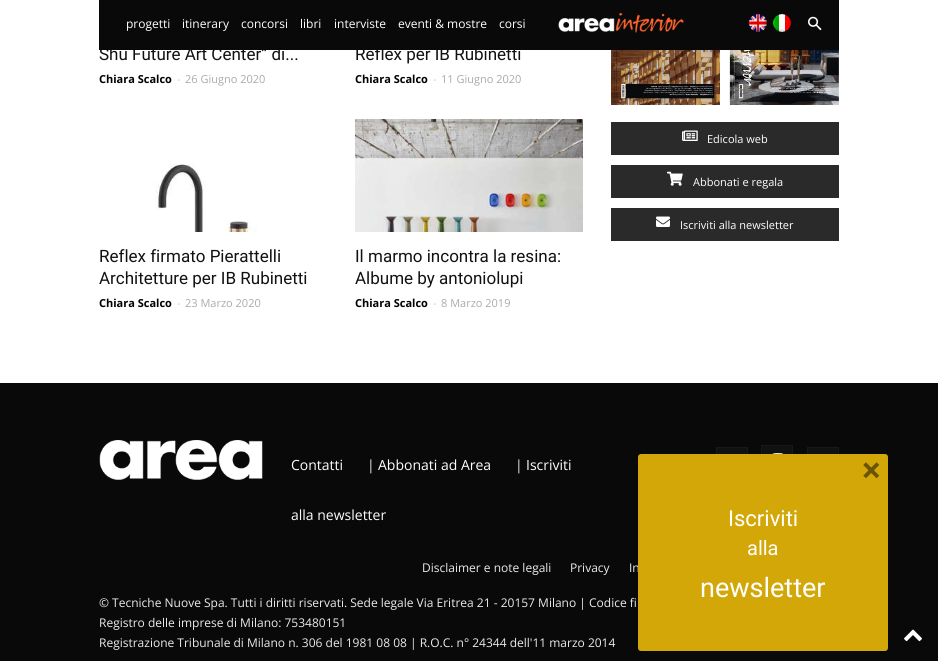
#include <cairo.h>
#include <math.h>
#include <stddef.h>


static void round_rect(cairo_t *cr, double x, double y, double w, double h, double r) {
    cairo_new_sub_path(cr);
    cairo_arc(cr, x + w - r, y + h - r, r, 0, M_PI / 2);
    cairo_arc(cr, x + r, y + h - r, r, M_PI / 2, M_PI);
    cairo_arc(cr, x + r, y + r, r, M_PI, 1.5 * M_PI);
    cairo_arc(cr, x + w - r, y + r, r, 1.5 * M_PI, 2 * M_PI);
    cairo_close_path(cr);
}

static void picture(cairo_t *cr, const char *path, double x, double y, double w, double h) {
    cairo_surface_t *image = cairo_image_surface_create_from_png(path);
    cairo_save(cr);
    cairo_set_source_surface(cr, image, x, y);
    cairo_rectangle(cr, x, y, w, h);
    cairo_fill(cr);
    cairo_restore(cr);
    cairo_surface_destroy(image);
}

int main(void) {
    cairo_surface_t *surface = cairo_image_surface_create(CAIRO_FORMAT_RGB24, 938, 661);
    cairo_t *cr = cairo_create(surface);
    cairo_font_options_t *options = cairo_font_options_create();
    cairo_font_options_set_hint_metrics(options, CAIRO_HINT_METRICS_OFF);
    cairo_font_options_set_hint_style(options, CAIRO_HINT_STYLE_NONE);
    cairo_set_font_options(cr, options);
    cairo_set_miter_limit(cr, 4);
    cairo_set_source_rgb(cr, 1, 1, 1);
    cairo_paint(cr);
    cairo_select_font_face(cr, "Roboto", CAIRO_FONT_SLANT_NORMAL, CAIRO_FONT_WEIGHT_NORMAL);
    cairo_set_font_size(cr, 17);
    cairo_set_source_rgb(cr, 0.067, 0.067, 0.067);
    cairo_move_to(cr, 99, 60);
    cairo_show_text(cr, "Shu Future Art Center” di...");
    cairo_move_to(cr, 355, 60);
    cairo_show_text(cr, "Reflex per IB Rubinetti");
    cairo_set_source_rgb(cr, 0.039, 0.039, 0.039);
    cairo_rectangle(cr, 99, 0, 740, 50);
    cairo_fill(cr);
    cairo_select_font_face(cr, "Open Sans", CAIRO_FONT_SLANT_NORMAL, CAIRO_FONT_WEIGHT_NORMAL);
    cairo_set_font_size(cr, 12);
    cairo_set_source_rgb(cr, 1, 1, 1);
    cairo_move_to(cr, 126, 28);
    cairo_show_text(cr, "progetti");
    cairo_move_to(cr, 182, 28);
    cairo_show_text(cr, "itinerary");
    cairo_move_to(cr, 241, 28);
    cairo_show_text(cr, "concorsi");
    cairo_move_to(cr, 300, 28);
    cairo_show_text(cr, "libri");
    cairo_move_to(cr, 334, 28);
    cairo_show_text(cr, "interviste");
    cairo_move_to(cr, 398, 28);
    cairo_show_text(cr, "eventi & mostre");
    cairo_move_to(cr, 499, 28);
    cairo_show_text(cr, "corsi");
    picture(cr, "img1.png", 558, 12, 126, 21);
    picture(cr, "img2.png", 749, 14, 18, 18);
    picture(cr, "img3.png", 773, 14, 18, 18);
    picture(cr, "img4.png", 808, 16, 14, 15);
    cairo_select_font_face(cr, "Open Sans", CAIRO_FONT_SLANT_NORMAL, CAIRO_FONT_WEIGHT_BOLD);
    cairo_set_font_size(cr, 11);
    cairo_set_source_rgb(cr, 0, 0, 0);
    cairo_move_to(cr, 99, 83);
    cairo_show_text(cr, "Chiara Scalco");
    cairo_select_font_face(cr, "Open Sans", CAIRO_FONT_SLANT_NORMAL, CAIRO_FONT_WEIGHT_NORMAL);
    cairo_set_source_rgb(cr, 0.8, 0.8, 0.8);
    cairo_move_to(cr, 177, 83);
    cairo_show_text(cr, "-");
    cairo_set_source_rgb(cr, 0.667, 0.667, 0.667);
    cairo_move_to(cr, 185, 83);
    cairo_show_text(cr, "26 Giugno 2020");
    cairo_select_font_face(cr, "Open Sans", CAIRO_FONT_SLANT_NORMAL, CAIRO_FONT_WEIGHT_BOLD);
    cairo_set_source_rgb(cr, 0, 0, 0);
    cairo_move_to(cr, 355, 83);
    cairo_show_text(cr, "Chiara Scalco");
    cairo_select_font_face(cr, "Open Sans", CAIRO_FONT_SLANT_NORMAL, CAIRO_FONT_WEIGHT_NORMAL);
    cairo_set_source_rgb(cr, 0.8, 0.8, 0.8);
    cairo_move_to(cr, 433, 83);
    cairo_show_text(cr, "-");
    cairo_set_source_rgb(cr, 0.667, 0.667, 0.667);
    cairo_move_to(cr, 441, 83);
    cairo_show_text(cr, "11 Giugno 2020");
    picture(cr, "img5.png", 155, 164, 102, 68);
    cairo_select_font_face(cr, "Roboto", CAIRO_FONT_SLANT_NORMAL, CAIRO_FONT_WEIGHT_NORMAL);
    cairo_set_font_size(cr, 17);
    cairo_set_source_rgb(cr, 0.067, 0.067, 0.067);
    cairo_move_to(cr, 99, 262);
    cairo_show_text(cr, "Reflex firmato Pierattelli");
    cairo_move_to(cr, 99, 284);
    cairo_show_text(cr, "Architetture per IB Rubinetti");
    cairo_select_font_face(cr, "Open Sans", CAIRO_FONT_SLANT_NORMAL, CAIRO_FONT_WEIGHT_BOLD);
    cairo_set_font_size(cr, 11);
    cairo_set_source_rgb(cr, 0, 0, 0);
    cairo_move_to(cr, 99, 307);
    cairo_show_text(cr, "Chiara Scalco");
    cairo_select_font_face(cr, "Open Sans", CAIRO_FONT_SLANT_NORMAL, CAIRO_FONT_WEIGHT_NORMAL);
    cairo_set_source_rgb(cr, 0.8, 0.8, 0.8);
    cairo_move_to(cr, 177, 307);
    cairo_show_text(cr, "-");
    cairo_set_source_rgb(cr, 0.667, 0.667, 0.667);
    cairo_move_to(cr, 185, 307);
    cairo_show_text(cr, "23 Marzo 2020");
    picture(cr, "img6.png", 355, 119, 228, 113);
    cairo_select_font_face(cr, "Roboto", CAIRO_FONT_SLANT_NORMAL, CAIRO_FONT_WEIGHT_NORMAL);
    cairo_set_font_size(cr, 17);
    cairo_set_source_rgb(cr, 0.067, 0.067, 0.067);
    cairo_move_to(cr, 355, 262);
    cairo_show_text(cr, "Il marmo incontra la resina:");
    cairo_move_to(cr, 355, 284);
    cairo_show_text(cr, "Albume by antoniolupi");
    cairo_select_font_face(cr, "Open Sans", CAIRO_FONT_SLANT_NORMAL, CAIRO_FONT_WEIGHT_BOLD);
    cairo_set_font_size(cr, 11);
    cairo_set_source_rgb(cr, 0, 0, 0);
    cairo_move_to(cr, 355, 307);
    cairo_show_text(cr, "Chiara Scalco");
    cairo_select_font_face(cr, "Open Sans", CAIRO_FONT_SLANT_NORMAL, CAIRO_FONT_WEIGHT_NORMAL);
    cairo_set_source_rgb(cr, 0.8, 0.8, 0.8);
    cairo_move_to(cr, 433, 307);
    cairo_show_text(cr, "-");
    cairo_set_source_rgb(cr, 0.667, 0.667, 0.667);
    cairo_move_to(cr, 441, 307);
    cairo_show_text(cr, "8 Marzo 2019");
    picture(cr, "img7.png", 611, 50, 109, 55);
    picture(cr, "img8.png", 729, 50, 110, 55);
    cairo_set_source_rgb(cr, 0.165, 0.165, 0.165);
    cairo_rectangle(cr, 611, 122, 228, 33);
    cairo_fill(cr);
    picture(cr, "img9.png", 682, 130, 16, 11);
    cairo_set_source_rgb(cr, 1, 1, 1);
    cairo_move_to(cr, 707, 143);
    cairo_show_text(cr, "Edicola web");
    cairo_set_source_rgb(cr, 0.165, 0.165, 0.165);
    cairo_rectangle(cr, 611, 165, 228, 33);
    cairo_fill(cr);
    picture(cr, "img10.png", 667, 171, 16, 15);
    cairo_set_source_rgb(cr, 1, 1, 1);
    cairo_move_to(cr, 693, 186);
    cairo_show_text(cr, "Abbonati e regala");
    cairo_set_source_rgb(cr, 0.165, 0.165, 0.165);
    cairo_rectangle(cr, 611, 208, 228, 33);
    cairo_fill(cr);
    picture(cr, "img11.png", 656, 216, 14, 11);
    cairo_set_source_rgb(cr, 1, 1, 1);
    cairo_move_to(cr, 680, 229);
    cairo_show_text(cr, "Iscriviti alla newsletter");
    cairo_set_source_rgb(cr, 0.039, 0.039, 0.039);
    cairo_rectangle(cr, 0, 383, 938, 278);
    cairo_fill(cr);
    picture(cr, "img12.png", 99, 440, 164, 40);
    cairo_set_font_size(cr, 14);
    cairo_set_source_rgb(cr, 1, 1, 1);
    cairo_move_to(cr, 291, 470);
    cairo_show_text(cr, "Contatti");
    cairo_set_source_rgb(cr, 0.918, 0.918, 0.918);
    cairo_move_to(cr, 367, 470);
    cairo_show_text(cr, "|");
    cairo_set_source_rgb(cr, 1, 1, 1);
    cairo_move_to(cr, 378, 470);
    cairo_show_text(cr, "Abbonati ad Area");
    cairo_set_source_rgb(cr, 0.918, 0.918, 0.918);
    cairo_move_to(cr, 515, 470);
    cairo_show_text(cr, "|");
    cairo_set_source_rgb(cr, 1, 1, 1);
    cairo_move_to(cr, 526, 470);
    cairo_show_text(cr, "Iscriviti");
    cairo_move_to(cr, 291, 520);
    cairo_show_text(cr, "alla newsletter");
    cairo_set_source_rgb(cr, 0.067, 0.067, 0.067);
    cairo_rectangle(cr, 717, 448, 30, 6);
    cairo_fill(cr);
    cairo_rectangle(cr, 716.5, 447.5, 31, 31);
    cairo_set_source_rgb(cr, 0.094, 0.094, 0.094);
    cairo_set_line_width(cr, 1);
    cairo_stroke(cr);
    cairo_set_source_rgb(cr, 0.067, 0.067, 0.067);
    cairo_rectangle(cr, 762, 446, 30, 8);
    cairo_fill(cr);
    picture(cr, "img13.png", 772, 453, 11, 1);
    cairo_rectangle(cr, 761.5, 445.5, 31, 31);
    cairo_set_source_rgb(cr, 0.094, 0.094, 0.094);
    cairo_stroke(cr);
    cairo_set_source_rgb(cr, 0.067, 0.067, 0.067);
    cairo_rectangle(cr, 808, 448, 30, 6);
    cairo_fill(cr);
    cairo_rectangle(cr, 807.5, 447.5, 31, 31);
    cairo_set_source_rgb(cr, 0.094, 0.094, 0.094);
    cairo_stroke(cr);
    cairo_set_font_size(cr, 12);
    cairo_set_source_rgb(cr, 0.918, 0.918, 0.918);
    cairo_move_to(cr, 422, 572);
    cairo_show_text(cr, "Disclaimer e note legali");
    cairo_move_to(cr, 570, 572);
    cairo_show_text(cr, "Privacy");
    cairo_move_to(cr, 629, 572);
    cairo_show_text(cr, "In");
    cairo_move_to(cr, 99, 607);
    cairo_show_text(cr, "© Tecniche Nuove Spa. Tutti i diritti riservati. Sede legale Via Eritrea 21 - 20157 Milano | Codice fi");
    cairo_move_to(cr, 99, 627);
    cairo_show_text(cr, "Registro delle imprese di Milano: 753480151");
    cairo_move_to(cr, 99, 647);
    cairo_show_text(cr, "Registrazione Tribunale di Milano n. 306 del 1981 08 08 | R.O.C. n° 24344 dell'11 marzo 2014");
    cairo_set_source_rgb(cr, 0.824, 0.655, 0.031);
    round_rect(cr, 638, 454, 250, 197, 3);
    cairo_fill(cr);
    cairo_select_font_face(cr, "Open Sans", CAIRO_FONT_SLANT_NORMAL, CAIRO_FONT_WEIGHT_BOLD);
    cairo_set_font_size(cr, 36);
    cairo_set_source_rgb(cr, 0.412, 0.329, 0.016);
    cairo_move_to(cr, 861, 483);
    cairo_show_text(cr, "×");
    cairo_select_font_face(cr, "Roboto", CAIRO_FONT_SLANT_NORMAL, CAIRO_FONT_WEIGHT_NORMAL);
    cairo_set_font_size(cr, 22);
    cairo_set_source_rgb(cr, 1, 1, 1);
    cairo_move_to(cr, 728, 526);
    cairo_show_text(cr, "Iscriviti");
    cairo_set_font_size(cr, 20);
    cairo_move_to(cr, 747, 555);
    cairo_show_text(cr, "alla");
    cairo_set_font_size(cr, 27);
    cairo_move_to(cr, 700, 597);
    cairo_show_text(cr, "newsletter");
    picture(cr, "img14.png", 904, 629, 18, 13);
    cairo_surface_write_to_png(surface, "page.png");
    cairo_font_options_destroy(options);
    cairo_destroy(cr);
    cairo_surface_destroy(surface);
    return 0;
}
